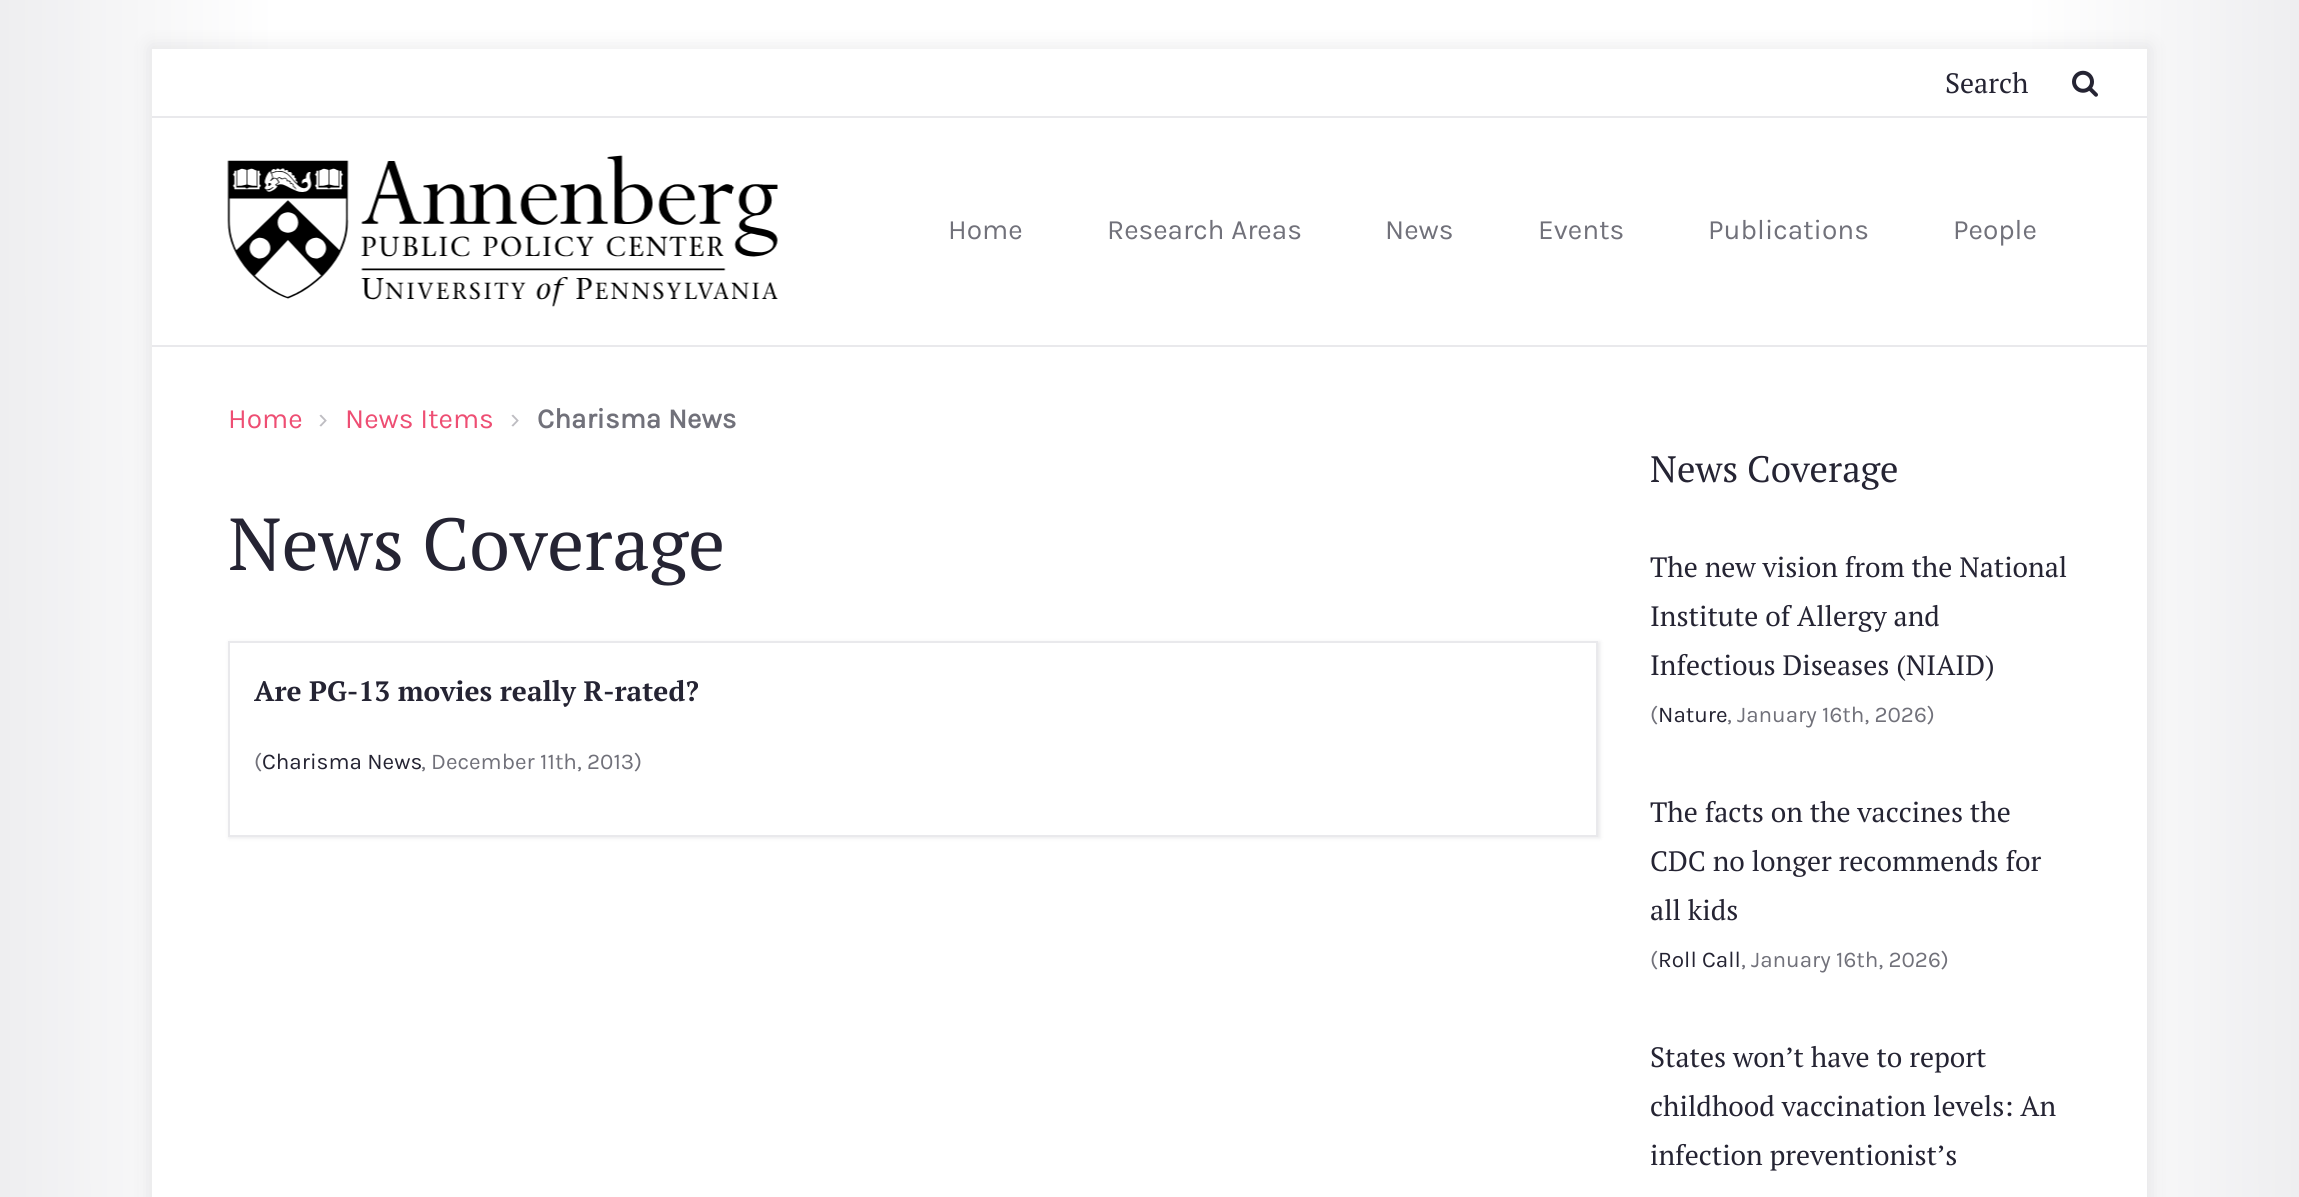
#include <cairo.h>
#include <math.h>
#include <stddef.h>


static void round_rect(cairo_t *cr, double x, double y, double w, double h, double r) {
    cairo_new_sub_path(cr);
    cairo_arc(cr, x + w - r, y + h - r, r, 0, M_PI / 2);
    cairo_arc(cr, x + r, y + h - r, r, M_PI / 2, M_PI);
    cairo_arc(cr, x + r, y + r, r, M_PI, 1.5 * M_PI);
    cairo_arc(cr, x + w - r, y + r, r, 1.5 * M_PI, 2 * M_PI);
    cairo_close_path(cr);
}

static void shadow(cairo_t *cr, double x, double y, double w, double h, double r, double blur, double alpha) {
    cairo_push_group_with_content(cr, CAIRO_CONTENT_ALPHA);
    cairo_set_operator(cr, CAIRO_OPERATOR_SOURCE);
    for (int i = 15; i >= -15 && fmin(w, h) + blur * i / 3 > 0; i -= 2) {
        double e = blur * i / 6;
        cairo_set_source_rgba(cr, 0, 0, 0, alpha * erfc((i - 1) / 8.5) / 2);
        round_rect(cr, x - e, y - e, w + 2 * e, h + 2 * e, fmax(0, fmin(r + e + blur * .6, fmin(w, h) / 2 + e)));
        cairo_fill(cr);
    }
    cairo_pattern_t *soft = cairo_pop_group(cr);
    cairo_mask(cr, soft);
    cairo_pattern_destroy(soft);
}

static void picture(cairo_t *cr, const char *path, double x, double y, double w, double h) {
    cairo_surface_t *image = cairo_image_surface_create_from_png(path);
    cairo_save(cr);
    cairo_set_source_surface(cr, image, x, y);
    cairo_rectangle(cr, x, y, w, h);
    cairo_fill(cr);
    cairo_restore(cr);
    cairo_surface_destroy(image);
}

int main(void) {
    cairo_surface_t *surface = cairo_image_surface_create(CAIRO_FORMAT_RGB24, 2299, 1197);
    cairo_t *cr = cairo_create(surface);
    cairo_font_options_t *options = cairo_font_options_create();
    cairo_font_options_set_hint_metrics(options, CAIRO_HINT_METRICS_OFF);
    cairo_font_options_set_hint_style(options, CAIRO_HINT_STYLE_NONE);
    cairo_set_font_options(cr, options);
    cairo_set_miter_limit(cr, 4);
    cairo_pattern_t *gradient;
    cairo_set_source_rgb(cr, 1, 1, 1);
    cairo_paint(cr);
    gradient = cairo_pattern_create_linear(0, 599, 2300, 598);
    cairo_pattern_add_color_stop_rgba(gradient, 0, 0.933, 0.933, 0.941, 1);
    cairo_pattern_add_color_stop_rgba(gradient, 0.12, 1, 1, 1, 1);
    cairo_pattern_add_color_stop_rgba(gradient, 0.88, 1, 1, 1, 1);
    cairo_pattern_add_color_stop_rgba(gradient, 1, 0.933, 0.933, 0.941, 1);
    cairo_set_source(cr, gradient);
    cairo_pattern_destroy(gradient);
    cairo_rectangle(cr, 0, 0, 2299, 1197);
    cairo_fill(cr);
    cairo_set_source_rgb(cr, 0.145, 0.141, 0.2);
    shadow(cr, 151, 47, 1998, 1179, 0, 9.5, 0.1);
    cairo_set_source_rgb(cr, 1, 1, 1);
    cairo_rectangle(cr, 152, 49, 1995, 1148);
    cairo_fill(cr);
    cairo_select_font_face(cr, "PT Serif", CAIRO_FONT_SLANT_NORMAL, CAIRO_FONT_WEIGHT_NORMAL);
    cairo_set_font_size(cr, 28);
    cairo_set_source_rgb(cr, 0.145, 0.141, 0.2);
    cairo_move_to(cr, 1945, 93);
    cairo_show_text(cr, "Search");
    picture(cr, "img1.png", 2072, 70, 26, 27);
    cairo_set_source_rgb(cr, 0.914, 0.914, 0.922);
    cairo_rectangle(cr, 152, 116, 1995, 2);
    cairo_fill(cr);
    cairo_rectangle(cr, 152, 345, 1995, 2);
    cairo_fill(cr);
    picture(cr, "img2.png", 227, 155, 551, 152);
    cairo_select_font_face(cr, "Karla", CAIRO_FONT_SLANT_NORMAL, CAIRO_FONT_WEIGHT_NORMAL);
    cairo_set_source_rgb(cr, 0.443, 0.443, 0.478);
    cairo_move_to(cr, 948, 239);
    cairo_show_text(cr, "Home");
    cairo_move_to(cr, 1107, 239);
    cairo_show_text(cr, "Research Areas");
    cairo_move_to(cr, 1385, 239);
    cairo_show_text(cr, "News");
    cairo_move_to(cr, 1538, 239);
    cairo_show_text(cr, "Events");
    cairo_move_to(cr, 1708, 239);
    cairo_show_text(cr, "Publications");
    cairo_move_to(cr, 1953, 239);
    cairo_show_text(cr, "People");
    cairo_set_source_rgb(cr, 0.933, 0.306, 0.451);
    cairo_move_to(cr, 228, 428);
    cairo_show_text(cr, "Home");
    cairo_set_source_rgb(cr, 0.745, 0.741, 0.761);
    cairo_move_to(cr, 318, 428);
    cairo_show_text(cr, "›");
    cairo_set_source_rgb(cr, 0.933, 0.306, 0.451);
    cairo_move_to(cr, 345, 428);
    cairo_show_text(cr, "News Items");
    cairo_set_source_rgb(cr, 0.745, 0.741, 0.761);
    cairo_move_to(cr, 510, 428);
    cairo_show_text(cr, "›");
    cairo_select_font_face(cr, "Karla", CAIRO_FONT_SLANT_NORMAL, CAIRO_FONT_WEIGHT_BOLD);
    cairo_set_source_rgb(cr, 0.443, 0.443, 0.478);
    cairo_move_to(cr, 537, 428);
    cairo_show_text(cr, "Charisma News");
    cairo_select_font_face(cr, "PT Serif", CAIRO_FONT_SLANT_NORMAL, CAIRO_FONT_WEIGHT_NORMAL);
    cairo_set_font_size(cr, 73.5);
    cairo_set_source_rgb(cr, 0.145, 0.141, 0.2);
    cairo_move_to(cr, 228, 570);
    cairo_show_text(cr, "News Coverage");
    cairo_set_source_rgb(cr, 0.145, 0.141, 0.2);
    shadow(cr, 229, 642, 1371, 196, 0, 2, 0.1);
    cairo_set_source_rgb(cr, 1, 1, 1);
    cairo_rectangle(cr, 229, 642, 1368, 194);
    cairo_fill_preserve(cr);
    cairo_set_source_rgb(cr, 0.914, 0.914, 0.922);
    cairo_stroke(cr);
    cairo_select_font_face(cr, "PT Serif", CAIRO_FONT_SLANT_NORMAL, CAIRO_FONT_WEIGHT_BOLD);
    cairo_set_font_size(cr, 28);
    cairo_set_source_rgb(cr, 0.145, 0.141, 0.2);
    cairo_move_to(cr, 254, 701);
    cairo_show_text(cr, "Are PG-13 movies really R-rated?");
    cairo_select_font_face(cr, "Karla", CAIRO_FONT_SLANT_NORMAL, CAIRO_FONT_WEIGHT_NORMAL);
    cairo_set_font_size(cr, 22.5);
    cairo_set_source_rgb(cr, 0.443, 0.443, 0.478);
    cairo_move_to(cr, 254, 769);
    cairo_show_text(cr, "(");
    cairo_set_source_rgb(cr, 0.145, 0.141, 0.2);
    cairo_move_to(cr, 262, 769);
    cairo_show_text(cr, "Charisma News");
    cairo_set_source_rgb(cr, 0.443, 0.443, 0.478);
    cairo_move_to(cr, 421, 769);
    cairo_show_text(cr, ", December 11th, 2013)");
    cairo_select_font_face(cr, "PT Serif", CAIRO_FONT_SLANT_NORMAL, CAIRO_FONT_WEIGHT_NORMAL);
    cairo_set_font_size(cr, 36.75);
    cairo_set_source_rgb(cr, 0.145, 0.141, 0.2);
    cairo_move_to(cr, 1650, 482);
    cairo_show_text(cr, "News Coverage");
    cairo_set_font_size(cr, 28);
    cairo_move_to(cr, 1650, 577);
    cairo_show_text(cr, "The new vision from the National");
    cairo_move_to(cr, 1650, 626);
    cairo_show_text(cr, "Institute of Allergy and");
    cairo_move_to(cr, 1650, 675);
    cairo_show_text(cr, "Infectious Diseases (NIAID)");
    cairo_select_font_face(cr, "Karla", CAIRO_FONT_SLANT_NORMAL, CAIRO_FONT_WEIGHT_NORMAL);
    cairo_set_font_size(cr, 22.5);
    cairo_set_source_rgb(cr, 0.443, 0.443, 0.478);
    cairo_move_to(cr, 1650, 722);
    cairo_show_text(cr, "(");
    cairo_set_source_rgb(cr, 0.145, 0.141, 0.2);
    cairo_move_to(cr, 1658, 722);
    cairo_show_text(cr, "Nature");
    cairo_set_source_rgb(cr, 0.443, 0.443, 0.478);
    cairo_move_to(cr, 1727, 722);
    cairo_show_text(cr, ", January 16th, 2026)");
    cairo_select_font_face(cr, "PT Serif", CAIRO_FONT_SLANT_NORMAL, CAIRO_FONT_WEIGHT_NORMAL);
    cairo_set_font_size(cr, 28);
    cairo_set_source_rgb(cr, 0.145, 0.141, 0.2);
    cairo_move_to(cr, 1650, 822);
    cairo_show_text(cr, "The facts on the vaccines the");
    cairo_move_to(cr, 1650, 871);
    cairo_show_text(cr, "CDC no longer recommends for");
    cairo_move_to(cr, 1650, 920);
    cairo_show_text(cr, "all kids");
    cairo_select_font_face(cr, "Karla", CAIRO_FONT_SLANT_NORMAL, CAIRO_FONT_WEIGHT_NORMAL);
    cairo_set_font_size(cr, 22.5);
    cairo_set_source_rgb(cr, 0.443, 0.443, 0.478);
    cairo_move_to(cr, 1650, 967);
    cairo_show_text(cr, "(");
    cairo_set_source_rgb(cr, 0.145, 0.141, 0.2);
    cairo_move_to(cr, 1658, 967);
    cairo_show_text(cr, "Roll Call");
    cairo_set_source_rgb(cr, 0.443, 0.443, 0.478);
    cairo_move_to(cr, 1741, 967);
    cairo_show_text(cr, ", January 16th, 2026)");
    cairo_select_font_face(cr, "PT Serif", CAIRO_FONT_SLANT_NORMAL, CAIRO_FONT_WEIGHT_NORMAL);
    cairo_set_font_size(cr, 28);
    cairo_set_source_rgb(cr, 0.145, 0.141, 0.2);
    cairo_move_to(cr, 1650, 1067);
    cairo_show_text(cr, "States won’t have to report");
    cairo_move_to(cr, 1650, 1116);
    cairo_show_text(cr, "childhood vaccination levels: An");
    cairo_move_to(cr, 1650, 1165);
    cairo_show_text(cr, "infection preventionist’s");
    cairo_surface_write_to_png(surface, "page.png");
    cairo_font_options_destroy(options);
    cairo_destroy(cr);
    cairo_surface_destroy(surface);
    return 0;
}
